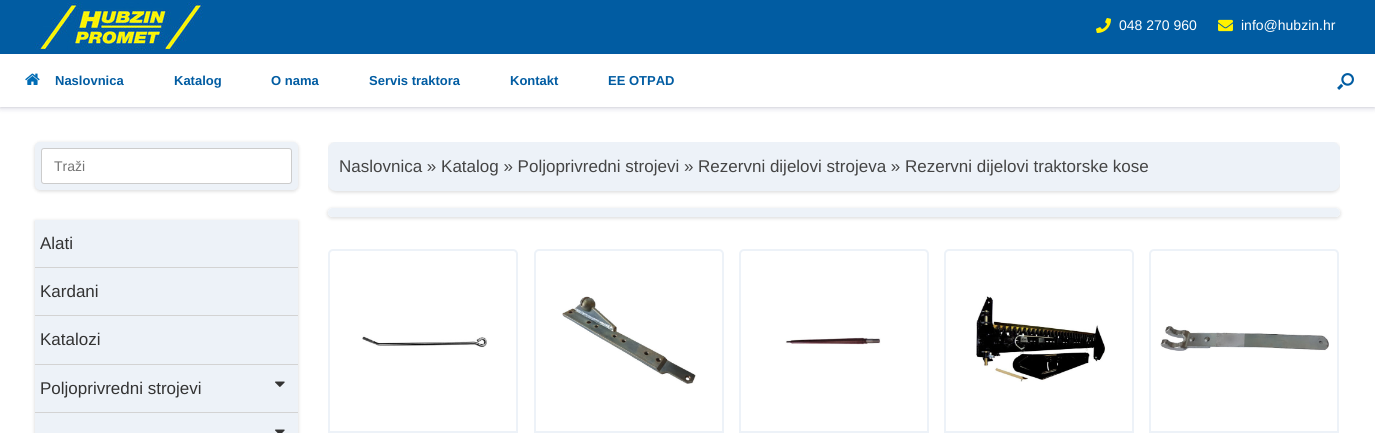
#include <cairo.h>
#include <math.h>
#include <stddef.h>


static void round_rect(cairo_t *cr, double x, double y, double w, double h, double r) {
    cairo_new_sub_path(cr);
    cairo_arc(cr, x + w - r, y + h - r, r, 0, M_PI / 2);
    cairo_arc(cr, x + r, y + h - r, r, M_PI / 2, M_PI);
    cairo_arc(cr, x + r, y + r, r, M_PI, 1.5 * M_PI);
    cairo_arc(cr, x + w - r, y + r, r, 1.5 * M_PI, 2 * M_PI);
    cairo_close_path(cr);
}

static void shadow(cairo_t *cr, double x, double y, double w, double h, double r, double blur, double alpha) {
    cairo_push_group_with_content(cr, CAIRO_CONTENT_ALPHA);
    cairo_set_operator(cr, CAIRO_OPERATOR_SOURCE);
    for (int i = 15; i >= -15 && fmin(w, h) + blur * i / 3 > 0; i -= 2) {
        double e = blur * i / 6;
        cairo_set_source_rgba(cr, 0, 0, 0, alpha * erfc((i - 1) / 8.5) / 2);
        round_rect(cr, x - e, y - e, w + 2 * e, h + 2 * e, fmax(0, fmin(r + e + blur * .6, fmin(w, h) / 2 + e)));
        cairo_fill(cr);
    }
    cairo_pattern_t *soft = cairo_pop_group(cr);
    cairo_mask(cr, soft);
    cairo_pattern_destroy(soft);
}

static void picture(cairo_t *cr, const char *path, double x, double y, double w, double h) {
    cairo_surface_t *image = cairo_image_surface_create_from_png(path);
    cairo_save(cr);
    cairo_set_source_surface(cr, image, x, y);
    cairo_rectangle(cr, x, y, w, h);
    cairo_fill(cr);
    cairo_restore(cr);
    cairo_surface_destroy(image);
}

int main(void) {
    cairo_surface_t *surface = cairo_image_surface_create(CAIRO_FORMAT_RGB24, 1375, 433);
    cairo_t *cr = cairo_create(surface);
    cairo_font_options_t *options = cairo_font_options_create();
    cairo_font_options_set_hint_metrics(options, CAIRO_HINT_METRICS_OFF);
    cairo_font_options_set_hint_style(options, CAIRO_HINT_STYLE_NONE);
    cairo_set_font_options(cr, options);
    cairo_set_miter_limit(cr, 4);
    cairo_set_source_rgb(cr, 0.004, 0.361, 0.635);
    cairo_paint(cr);
    picture(cr, "img1.png", 35, 2, 168, 48);
    picture(cr, "img2.png", 1096, 18, 15, 15);
    cairo_select_font_face(cr, "Liberation Sans", CAIRO_FONT_SLANT_NORMAL, CAIRO_FONT_WEIGHT_NORMAL);
    cairo_set_font_size(cr, 14);
    cairo_set_source_rgb(cr, 1, 1, 1);
    cairo_move_to(cr, 1119, 30);
    cairo_show_text(cr, "048 270 960");
    picture(cr, "img3.png", 1218, 19, 15, 13);
    cairo_move_to(cr, 1241, 30);
    cairo_show_text(cr, "info@hubzin.hr");
    cairo_rectangle(cr, 0, 107, 1375, 326);
    cairo_fill(cr);
    cairo_set_source_rgb(cr, 0, 0, 0);
    shadow(cr, 0, 55, 1375, 53, 0, 0.5, 0.05);
    cairo_set_source_rgb(cr, 0.196, 0.196, 0.412);
    shadow(cr, 0, 56, 1375, 53, 0, 2.5, 0.15);
    cairo_set_source_rgb(cr, 1, 1, 1);
    cairo_rectangle(cr, 0, 54, 1375, 53);
    cairo_fill(cr);
    picture(cr, "img4.png", 25, 73, 15, 12);
    cairo_select_font_face(cr, "Liberation Sans", CAIRO_FONT_SLANT_NORMAL, CAIRO_FONT_WEIGHT_BOLD);
    cairo_set_font_size(cr, 13);
    cairo_set_source_rgb(cr, 0.004, 0.361, 0.635);
    cairo_move_to(cr, 55, 85);
    cairo_show_text(cr, "Naslovnica");
    cairo_move_to(cr, 174, 85);
    cairo_show_text(cr, "Katalog");
    cairo_move_to(cr, 271, 85);
    cairo_show_text(cr, "O nama");
    cairo_move_to(cr, 369, 85);
    cairo_show_text(cr, "Servis traktora");
    cairo_move_to(cr, 510, 85);
    cairo_show_text(cr, "Kontakt");
    cairo_move_to(cr, 608, 85);
    cairo_show_text(cr, "EE OTPAD");
    picture(cr, "img5.png", 1337, 73, 17, 17);
    cairo_set_source_rgb(cr, 0, 0, 0);
    shadow(cr, 35, 143, 263, 48, 5, 2, 0.16);
    cairo_set_source_rgb(cr, 0.929, 0.949, 0.969);
    round_rect(cr, 35, 142, 263, 48, 5);
    cairo_fill(cr);
    cairo_set_source_rgb(cr, 1, 1, 1);
    round_rect(cr, 41.5, 148.5, 250, 35, 2.5);
    cairo_fill_preserve(cr);
    cairo_set_source_rgb(cr, 0.8, 0.8, 0.8);
    cairo_set_line_width(cr, 1);
    cairo_stroke(cr);
    cairo_select_font_face(cr, "Liberation Sans", CAIRO_FONT_SLANT_NORMAL, CAIRO_FONT_WEIGHT_NORMAL);
    cairo_set_font_size(cr, 14);
    cairo_set_source_rgb(cr, 0.459, 0.459, 0.459);
    cairo_move_to(cr, 54, 171);
    cairo_show_text(cr, "Traži");
    cairo_set_source_rgb(cr, 0, 0, 0);
    shadow(cr, 35, 221, 263, 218, 0, 2, 0.16);
    cairo_set_source_rgb(cr, 0.929, 0.949, 0.969);
    cairo_rectangle(cr, 35, 220, 263, 47);
    cairo_fill(cr);
    cairo_set_source_rgb(cr, 0.827, 0.827, 0.827);
    cairo_rectangle(cr, 35, 267, 263, 1);
    cairo_fill(cr);
    cairo_set_font_size(cr, 17);
    cairo_set_source_rgb(cr, 0.2, 0.2, 0.2);
    cairo_move_to(cr, 40, 249);
    cairo_show_text(cr, "Alati");
    cairo_set_source_rgb(cr, 0.929, 0.949, 0.969);
    cairo_rectangle(cr, 35, 268, 263, 47);
    cairo_fill(cr);
    cairo_set_source_rgb(cr, 0.827, 0.827, 0.827);
    cairo_rectangle(cr, 35, 315, 263, 1);
    cairo_fill(cr);
    cairo_set_source_rgb(cr, 0.2, 0.2, 0.2);
    cairo_move_to(cr, 40, 297);
    cairo_show_text(cr, "Kardani");
    cairo_set_source_rgb(cr, 0.929, 0.949, 0.969);
    cairo_rectangle(cr, 35, 316, 263, 48);
    cairo_fill(cr);
    cairo_set_source_rgb(cr, 0.827, 0.827, 0.827);
    cairo_rectangle(cr, 35, 364, 263, 1);
    cairo_fill(cr);
    cairo_set_source_rgb(cr, 0.2, 0.2, 0.2);
    cairo_move_to(cr, 40, 345);
    cairo_show_text(cr, "Katalozi");
    cairo_set_source_rgb(cr, 0.929, 0.949, 0.969);
    cairo_rectangle(cr, 35, 365, 263, 47);
    cairo_fill(cr);
    cairo_set_source_rgb(cr, 0.827, 0.827, 0.827);
    cairo_rectangle(cr, 35, 412, 263, 1);
    cairo_fill(cr);
    cairo_set_source_rgb(cr, 0.2, 0.2, 0.2);
    cairo_move_to(cr, 40, 394);
    cairo_show_text(cr, "Poljoprivredni strojevi");
    picture(cr, "img6.png", 275, 381, 10, 6);
    cairo_set_source_rgb(cr, 0.929, 0.949, 0.969);
    cairo_rectangle(cr, 35, 413, 263, 20);
    cairo_fill(cr);
    picture(cr, "img7.png", 275, 429, 10, 4);
    cairo_save(cr);
    cairo_rectangle(cr, 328, 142, 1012, 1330);
    cairo_clip(cr);
    cairo_set_source_rgb(cr, 0, 0, 0);
    shadow(cr, 328, 143, 1012, 49, 8, 2, 0.16);
    cairo_restore(cr);
    round_rect(cr, 328, 142, 1012, 49, 8);
    cairo_fill(cr);
    cairo_set_source_rgb(cr, 0.267, 0.267, 0.267);
    cairo_move_to(cr, 339, 172);
    cairo_show_text(cr, "Naslovnica » Katalog » Poljoprivredni strojevi » Rezervni dijelovi strojeva » Rezervni dijelovi traktorske kose");
    cairo_save(cr);
    cairo_set_fill_rule(cr, CAIRO_FILL_RULE_EVEN_ODD);
    cairo_new_path(cr);
    cairo_move_to(cr, 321, 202);
    cairo_line_to(cr, 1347, 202);
    cairo_line_to(cr, 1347, 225);
    cairo_line_to(cr, 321, 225);
    cairo_close_path(cr);
    cairo_move_to(cr, 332.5, 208);
    cairo_line_to(cr, 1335.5, 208);
    cairo_curve_to(cr, 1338, 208, 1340, 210, 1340, 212.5);
    cairo_curve_to(cr, 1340, 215, 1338, 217, 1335.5, 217);
    cairo_line_to(cr, 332.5, 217);
    cairo_curve_to(cr, 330, 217, 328, 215, 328, 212.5);
    cairo_curve_to(cr, 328, 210, 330, 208, 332.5, 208);
    cairo_close_path(cr);
    cairo_clip(cr);
    cairo_set_source_rgb(cr, 0, 0, 0);
    shadow(cr, 328, 209, 1012, 9, 4.5, 2, 0.16);
    cairo_restore(cr);
    cairo_set_source_rgb(cr, 0.929, 0.949, 0.969);
    round_rect(cr, 328, 208, 1012, 9, 4.5);
    cairo_fill(cr);
    round_rect(cr, 329, 250, 188, 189, 4);
    cairo_set_line_width(cr, 2);
    cairo_stroke(cr);
    picture(cr, "img8.png", 362, 335, 125, 13);
    cairo_rectangle(cr, 330, 431, 186, 2);
    cairo_fill(cr);
    round_rect(cr, 535, 250, 188, 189, 4);
    cairo_stroke(cr);
    picture(cr, "img9.png", 562, 296, 134, 88);
    cairo_rectangle(cr, 536, 431, 186, 2);
    cairo_fill(cr);
    round_rect(cr, 740, 250, 188, 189, 4);
    cairo_stroke(cr);
    picture(cr, "img10.png", 785, 337, 96, 8);
    cairo_rectangle(cr, 741, 431, 186, 2);
    cairo_fill(cr);
    round_rect(cr, 945, 250, 188, 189, 4);
    cairo_stroke(cr);
    picture(cr, "img11.png", 976, 296, 130, 86);
    cairo_rectangle(cr, 946, 431, 186, 2);
    cairo_fill(cr);
    round_rect(cr, 1150, 250, 188, 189, 4);
    cairo_stroke(cr);
    picture(cr, "img12.png", 1160, 326, 169, 25);
    cairo_rectangle(cr, 1151, 431, 186, 2);
    cairo_fill(cr);
    cairo_surface_write_to_png(surface, "page.png");
    cairo_font_options_destroy(options);
    cairo_destroy(cr);
    cairo_surface_destroy(surface);
    return 0;
}
